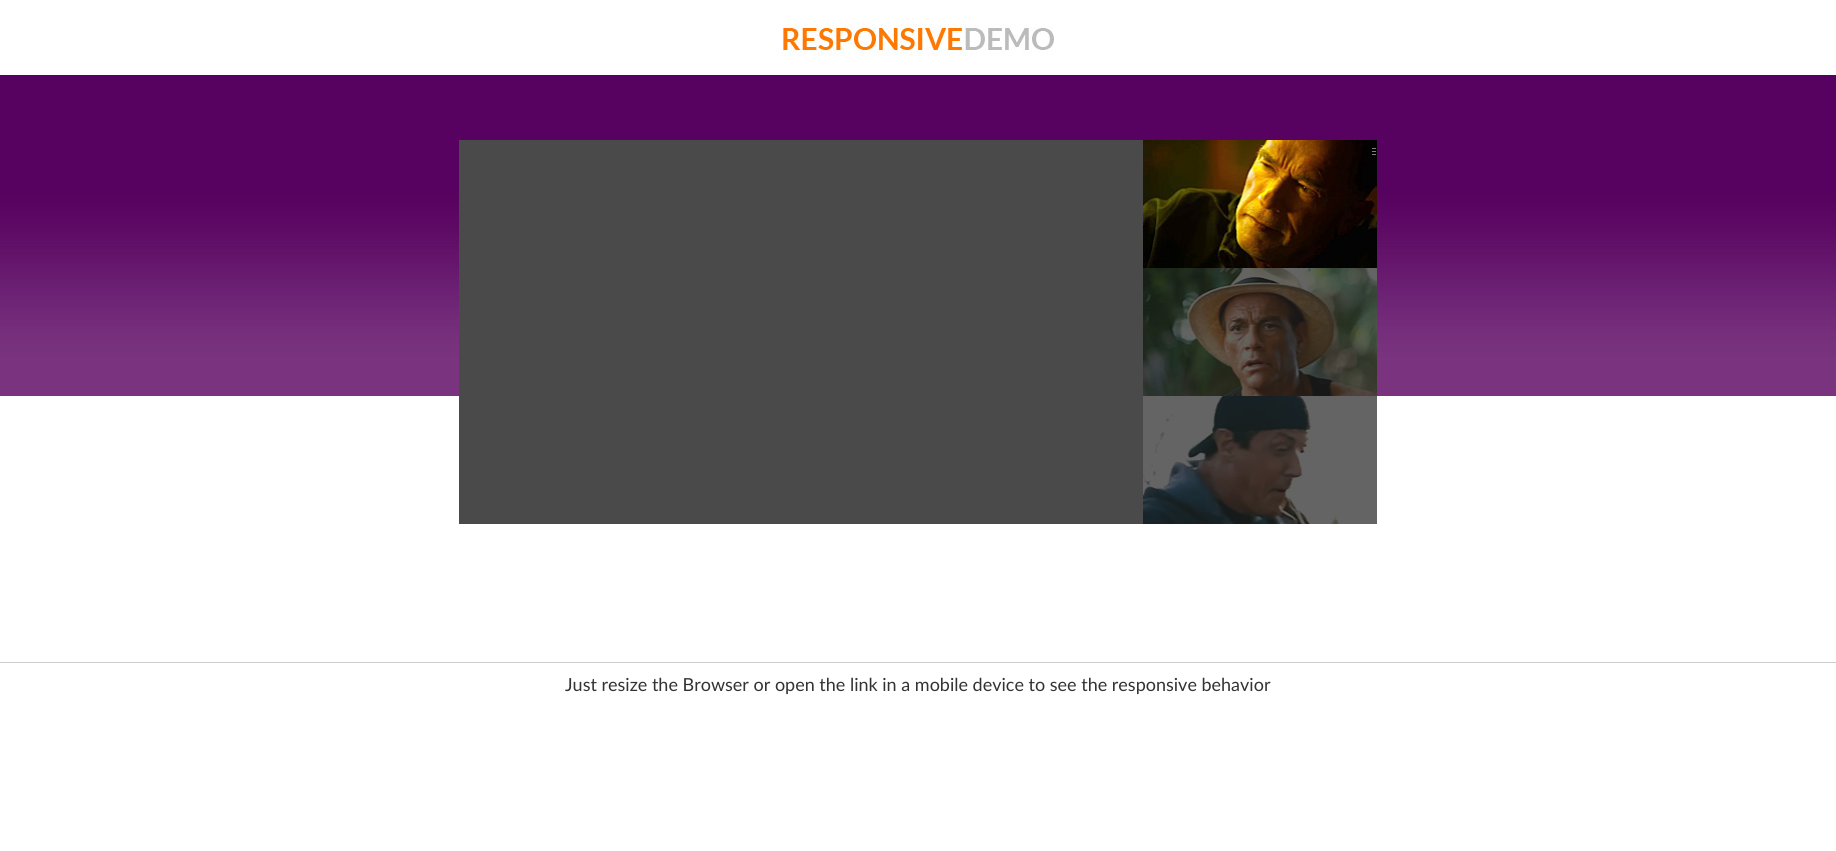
#include <cairo.h>
#include <math.h>
#include <stddef.h>


static void picture(cairo_t *cr, const char *path, double x, double y, double w, double h) {
    cairo_surface_t *image = cairo_image_surface_create_from_png(path);
    cairo_save(cr);
    cairo_set_source_surface(cr, image, x, y);
    cairo_rectangle(cr, x, y, w, h);
    cairo_fill(cr);
    cairo_restore(cr);
    cairo_surface_destroy(image);
}

int main(void) {
    cairo_surface_t *surface = cairo_image_surface_create(CAIRO_FORMAT_RGB24, 1836, 851);
    cairo_t *cr = cairo_create(surface);
    cairo_font_options_t *options = cairo_font_options_create();
    cairo_font_options_set_hint_metrics(options, CAIRO_HINT_METRICS_OFF);
    cairo_font_options_set_hint_style(options, CAIRO_HINT_STYLE_NONE);
    cairo_set_font_options(cr, options);
    cairo_set_miter_limit(cr, 4);
    cairo_set_source_rgb(cr, 1, 1, 1);
    cairo_paint(cr);
    picture(cr, "img1.png", 0, 24, 1836, 372);
    cairo_set_source_rgb(cr, 0.29, 0.29, 0.29);
    cairo_rectangle(cr, 459, 140, 684, 384);
    cairo_fill(cr);
    cairo_set_source_rgb(cr, 0.129, 0.129, 0.129);
    cairo_rectangle(cr, 1143, 268, 234, 256);
    cairo_fill(cr);
    picture(cr, "img2.png", 1143, 140, 234, 128);
    picture(cr, "img3.png", 1143, 268, 234, 128);
    picture(cr, "img4.png", 1143, 396, 234, 128);
    picture(cr, "img5.png", 1372, 148, 4, 7);
    cairo_set_source_rgb(cr, 0.8, 0.8, 0.8);
    cairo_rectangle(cr, 0, 662, 1836, 1);
    cairo_fill(cr);
    cairo_select_font_face(cr, "Lato", CAIRO_FONT_SLANT_NORMAL, CAIRO_FONT_WEIGHT_NORMAL);
    cairo_set_font_size(cr, 18);
    cairo_set_source_rgb(cr, 0.2, 0.2, 0.2);
    cairo_move_to(cr, 565, 691);
    cairo_show_text(cr, "Just resize the Browser or open the link in a mobile device to see the responsive behavior");
    cairo_surface_write_to_png(surface, "page.png");
    cairo_font_options_destroy(options);
    cairo_destroy(cr);
    cairo_surface_destroy(surface);
    return 0;
}
